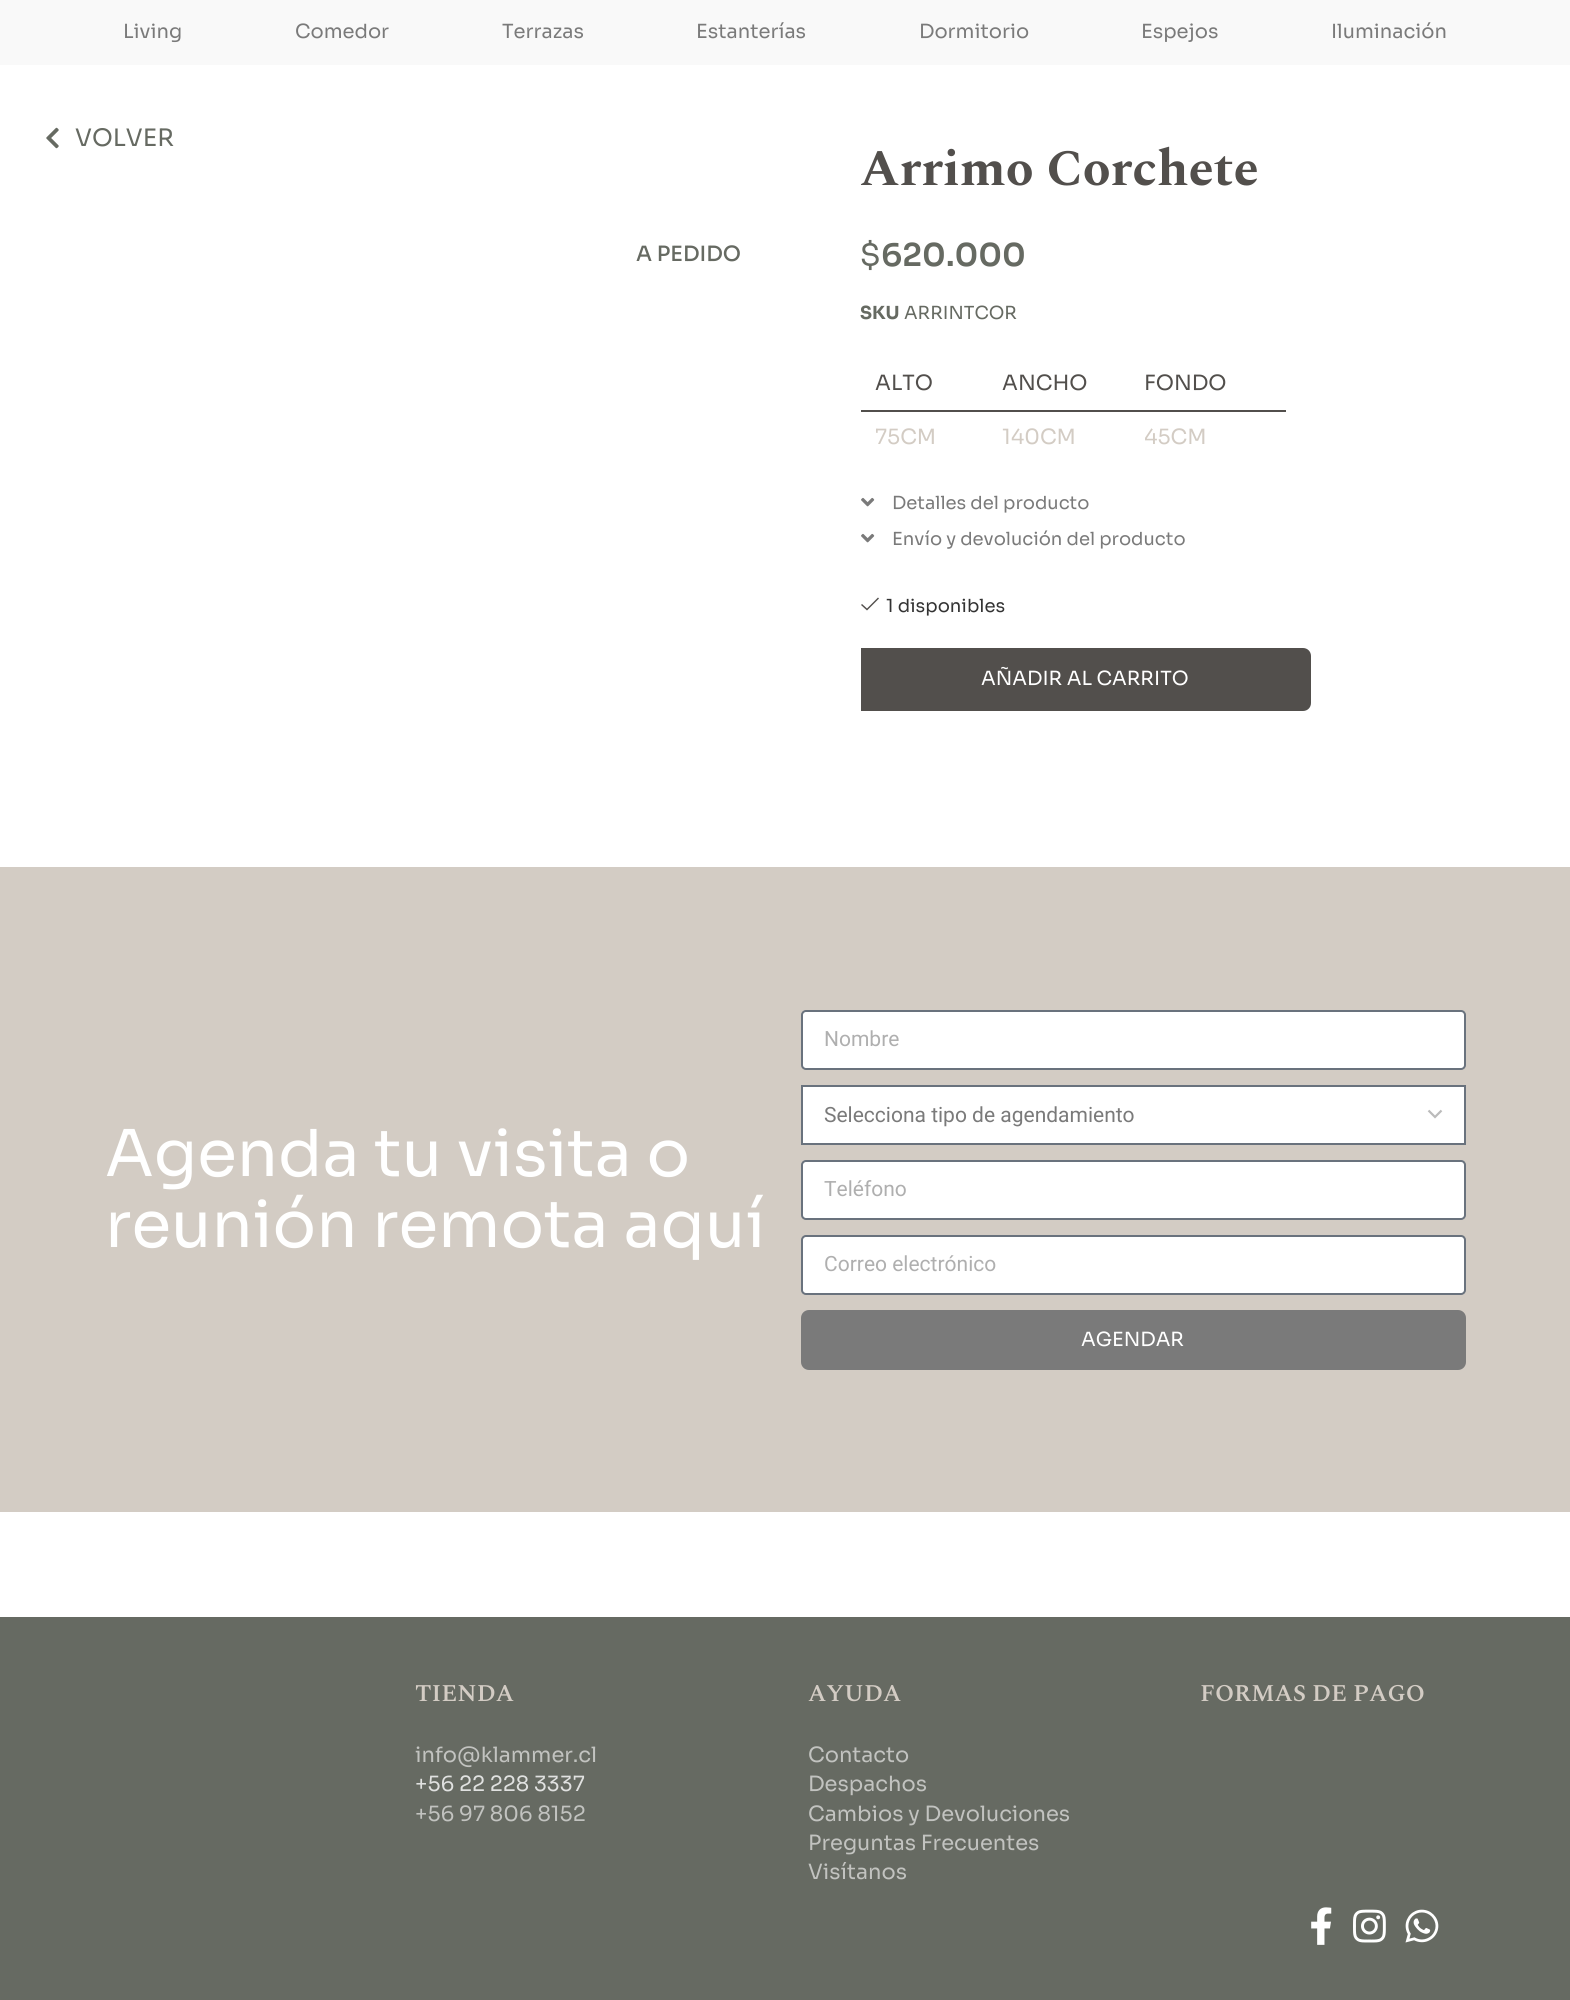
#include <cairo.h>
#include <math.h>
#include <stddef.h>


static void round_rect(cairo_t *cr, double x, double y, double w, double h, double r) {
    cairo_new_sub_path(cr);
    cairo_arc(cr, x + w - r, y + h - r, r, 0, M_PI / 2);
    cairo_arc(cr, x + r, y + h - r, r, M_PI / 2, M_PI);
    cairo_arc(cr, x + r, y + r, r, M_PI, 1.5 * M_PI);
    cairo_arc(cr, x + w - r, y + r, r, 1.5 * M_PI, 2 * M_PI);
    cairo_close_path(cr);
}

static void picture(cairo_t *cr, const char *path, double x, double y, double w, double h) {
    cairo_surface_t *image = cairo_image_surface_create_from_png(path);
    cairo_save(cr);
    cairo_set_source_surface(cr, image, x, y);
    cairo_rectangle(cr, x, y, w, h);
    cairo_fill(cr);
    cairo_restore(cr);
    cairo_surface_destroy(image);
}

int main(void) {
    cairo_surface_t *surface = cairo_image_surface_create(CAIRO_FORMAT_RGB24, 1570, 2000);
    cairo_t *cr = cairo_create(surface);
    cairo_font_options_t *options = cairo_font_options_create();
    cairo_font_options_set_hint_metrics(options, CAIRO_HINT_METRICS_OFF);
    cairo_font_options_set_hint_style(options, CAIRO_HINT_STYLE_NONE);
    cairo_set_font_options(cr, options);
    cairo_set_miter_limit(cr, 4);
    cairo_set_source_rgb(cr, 1, 1, 1);
    cairo_paint(cr);
    cairo_set_source_rgb(cr, 0.976, 0.976, 0.976);
    cairo_rectangle(cr, 0, 0, 1570, 65);
    cairo_fill(cr);
    cairo_select_font_face(cr, "Sora", CAIRO_FONT_SLANT_NORMAL, CAIRO_FONT_WEIGHT_NORMAL);
    cairo_set_font_size(cr, 19.5);
    cairo_set_source_rgb(cr, 0.478, 0.478, 0.478);
    cairo_move_to(cr, 123, 38);
    cairo_show_text(cr, "Living");
    cairo_move_to(cr, 295, 38);
    cairo_show_text(cr, "Comedor");
    cairo_move_to(cr, 502, 38);
    cairo_show_text(cr, "Terrazas");
    cairo_move_to(cr, 696, 38);
    cairo_show_text(cr, "Estanterías");
    cairo_move_to(cr, 919, 38);
    cairo_show_text(cr, "Dormitorio");
    cairo_move_to(cr, 1141, 38);
    cairo_show_text(cr, "Espejos");
    cairo_move_to(cr, 1331, 38);
    cairo_show_text(cr, "Iluminación");
    picture(cr, "img1.png", 46, 127, 13, 22);
    cairo_set_font_size(cr, 24);
    cairo_set_source_rgb(cr, 0.4, 0.416, 0.384);
    cairo_move_to(cr, 75, 146);
    cairo_show_text(cr, "VOLVER");
    cairo_select_font_face(cr, "Sora Medium", CAIRO_FONT_SLANT_NORMAL, CAIRO_FONT_WEIGHT_NORMAL);
    cairo_set_font_size(cr, 21);
    cairo_move_to(cr, 636, 261);
    cairo_show_text(cr, "A PEDIDO");
    cairo_select_font_face(cr, "Spectral", CAIRO_FONT_SLANT_NORMAL, CAIRO_FONT_WEIGHT_BOLD);
    cairo_set_font_size(cr, 51);
    cairo_set_source_rgb(cr, 0.322, 0.31, 0.298);
    cairo_move_to(cr, 860, 185);
    cairo_show_text(cr, "Arrimo Corchete");
    cairo_select_font_face(cr, "Sora", CAIRO_FONT_SLANT_NORMAL, CAIRO_FONT_WEIGHT_NORMAL);
    cairo_set_font_size(cr, 31.5);
    cairo_set_source_rgb(cr, 0.4, 0.416, 0.384);
    cairo_move_to(cr, 860, 266);
    cairo_show_text(cr, "$");
    cairo_select_font_face(cr, "Sora SemiBold", CAIRO_FONT_SLANT_NORMAL, CAIRO_FONT_WEIGHT_NORMAL);
    cairo_move_to(cr, 881, 266);
    cairo_show_text(cr, "620.000");
    cairo_select_font_face(cr, "Sora", CAIRO_FONT_SLANT_NORMAL, CAIRO_FONT_WEIGHT_BOLD);
    cairo_set_font_size(cr, 18);
    cairo_move_to(cr, 860, 319);
    cairo_show_text(cr, "SKU");
    cairo_select_font_face(cr, "Sora", CAIRO_FONT_SLANT_NORMAL, CAIRO_FONT_WEIGHT_NORMAL);
    cairo_move_to(cr, 904, 319);
    cairo_show_text(cr, "ARRINTCOR");
    cairo_set_font_size(cr, 21);
    cairo_set_source_rgb(cr, 0.322, 0.31, 0.298);
    cairo_move_to(cr, 875, 390);
    cairo_show_text(cr, "ALTO");
    cairo_rectangle(cr, 861, 410, 425, 2);
    cairo_fill(cr);
    cairo_set_source_rgb(cr, 0.827, 0.8, 0.769);
    cairo_move_to(cr, 875, 444);
    cairo_show_text(cr, "75CM");
    cairo_set_source_rgb(cr, 0.322, 0.31, 0.298);
    cairo_move_to(cr, 1002, 390);
    cairo_show_text(cr, "ANCHO");
    cairo_set_source_rgb(cr, 0.827, 0.8, 0.769);
    cairo_move_to(cr, 1002, 444);
    cairo_show_text(cr, "140CM");
    cairo_set_source_rgb(cr, 0.322, 0.31, 0.298);
    cairo_move_to(cr, 1144, 390);
    cairo_show_text(cr, "FONDO");
    cairo_set_source_rgb(cr, 0.827, 0.8, 0.769);
    cairo_move_to(cr, 1144, 444);
    cairo_show_text(cr, "45CM");
    picture(cr, "img2.png", 861, 497, 14, 10);
    cairo_set_font_size(cr, 18);
    cairo_set_source_rgb(cr, 0.478, 0.478, 0.478);
    cairo_move_to(cr, 892, 509);
    cairo_show_text(cr, "Detalles del producto");
    picture(cr, "img2.png", 861, 533, 14, 10);
    cairo_move_to(cr, 892, 545);
    cairo_show_text(cr, "Envío y devolución del producto");
    cairo_set_source_rgb(cr, 0.322, 0.31, 0.298);
    cairo_new_path(cr);
    cairo_move_to(cr, 879, 598.5);
    cairo_line_to(cr, 878, 597.5);
    cairo_line_to(cr, 867, 608.5);
    cairo_line_to(cr, 862, 604);
    cairo_line_to(cr, 861, 605);
    cairo_line_to(cr, 867, 610.5);
    cairo_close_path(cr);
    cairo_fill(cr);
    cairo_set_source_rgb(cr, 0.2, 0.2, 0.2);
    cairo_move_to(cr, 886, 612);
    cairo_show_text(cr, "1 disponibles");
    cairo_set_source_rgb(cr, 0.322, 0.31, 0.298);
    cairo_new_path(cr);
    cairo_move_to(cr, 861, 648);
    cairo_line_to(cr, 1303, 648);
    cairo_curve_to(cr, 1307.5, 648, 1311, 651.5, 1311, 656);
    cairo_line_to(cr, 1311, 703);
    cairo_curve_to(cr, 1311, 707.5, 1307.5, 711, 1303, 711);
    cairo_line_to(cr, 861, 711);
    cairo_close_path(cr);
    cairo_fill(cr);
    cairo_set_font_size(cr, 19.5);
    cairo_set_source_rgb(cr, 1, 1, 1);
    cairo_move_to(cr, 981, 685);
    cairo_show_text(cr, "AÑADIR AL CARRITO");
    cairo_set_source_rgb(cr, 0.827, 0.8, 0.769);
    cairo_rectangle(cr, 0, 867, 1570, 645);
    cairo_fill(cr);
    cairo_set_font_size(cr, 64.5);
    cairo_set_source_rgb(cr, 1, 1, 1);
    cairo_move_to(cr, 105, 1176);
    cairo_show_text(cr, "Agenda tu visita o");
    cairo_move_to(cr, 105, 1247);
    cairo_show_text(cr, "reunión remota aquí");
    round_rect(cr, 802, 1011, 663, 58, 4);
    cairo_fill_preserve(cr);
    cairo_set_source_rgb(cr, 0.412, 0.447, 0.49);
    cairo_stroke(cr);
    cairo_select_font_face(cr, "Roboto", CAIRO_FONT_SLANT_NORMAL, CAIRO_FONT_WEIGHT_NORMAL);
    cairo_set_font_size(cr, 21);
    cairo_set_source_rgb(cr, 0.686, 0.686, 0.686);
    cairo_move_to(cr, 824, 1046);
    cairo_show_text(cr, "Nombre");
    cairo_set_source_rgb(cr, 1, 1, 1);
    cairo_rectangle(cr, 803, 1087, 661, 56);
    cairo_fill(cr);
    cairo_new_path(cr);
    cairo_move_to(cr, 1428.5, 1110.5);
    cairo_line_to(cr, 1435, 1117);
    cairo_line_to(cr, 1441.5, 1110.5);
    cairo_set_source_rgb(cr, 0.733, 0.733, 0.733);
    cairo_set_line_width(cr, 2.2);
    cairo_stroke(cr);
    cairo_rectangle(cr, 802, 1086, 663, 58);
    cairo_set_source_rgb(cr, 0.412, 0.447, 0.49);
    cairo_set_line_width(cr, 2);
    cairo_stroke(cr);
    cairo_set_source_rgb(cr, 0.478, 0.478, 0.478);
    cairo_move_to(cr, 824, 1122);
    cairo_show_text(cr, "Selecciona tipo de agendamiento");
    cairo_set_source_rgb(cr, 1, 1, 1);
    round_rect(cr, 802, 1161, 663, 58, 4);
    cairo_fill_preserve(cr);
    cairo_set_source_rgb(cr, 0.412, 0.447, 0.49);
    cairo_stroke(cr);
    cairo_set_source_rgb(cr, 0.686, 0.686, 0.686);
    cairo_move_to(cr, 824, 1196);
    cairo_show_text(cr, "Teléfono");
    cairo_set_source_rgb(cr, 1, 1, 1);
    round_rect(cr, 802, 1236, 663, 58, 4);
    cairo_fill_preserve(cr);
    cairo_set_source_rgb(cr, 0.412, 0.447, 0.49);
    cairo_stroke(cr);
    cairo_set_source_rgb(cr, 0.686, 0.686, 0.686);
    cairo_move_to(cr, 824, 1271);
    cairo_show_text(cr, "Correo electrónico");
    cairo_set_source_rgb(cr, 0.478, 0.478, 0.478);
    round_rect(cr, 801, 1310, 665, 60, 8);
    cairo_fill(cr);
    cairo_select_font_face(cr, "Sora", CAIRO_FONT_SLANT_NORMAL, CAIRO_FONT_WEIGHT_NORMAL);
    cairo_set_font_size(cr, 19.5);
    cairo_set_source_rgb(cr, 1, 1, 1);
    cairo_move_to(cr, 1081, 1346);
    cairo_show_text(cr, "AGENDAR");
    cairo_set_source_rgb(cr, 0.4, 0.416, 0.384);
    cairo_rectangle(cr, 0, 1617, 1570, 383);
    cairo_fill(cr);
    cairo_select_font_face(cr, "Spectral SemiBold", CAIRO_FONT_SLANT_NORMAL, CAIRO_FONT_WEIGHT_NORMAL);
    cairo_set_font_size(cr, 24);
    cairo_set_source_rgb(cr, 0.827, 0.8, 0.769);
    cairo_move_to(cr, 415, 1701);
    cairo_show_text(cr, "TIENDA");
    cairo_select_font_face(cr, "Sora", CAIRO_FONT_SLANT_NORMAL, CAIRO_FONT_WEIGHT_NORMAL);
    cairo_set_font_size(cr, 21);
    cairo_set_source_rgb(cr, 0.761, 0.765, 0.753);
    cairo_move_to(cr, 415, 1762);
    cairo_show_text(cr, "info@klammer.cl");
    cairo_set_source_rgb(cr, 0.878, 0.882, 0.878);
    cairo_move_to(cr, 415, 1791);
    cairo_show_text(cr, "+56 22 228 3337");
    cairo_set_source_rgb(cr, 0.761, 0.765, 0.753);
    cairo_move_to(cr, 415, 1821);
    cairo_show_text(cr, "+56 97 806 8152");
    cairo_select_font_face(cr, "Spectral SemiBold", CAIRO_FONT_SLANT_NORMAL, CAIRO_FONT_WEIGHT_NORMAL);
    cairo_set_font_size(cr, 24);
    cairo_set_source_rgb(cr, 0.827, 0.8, 0.769);
    cairo_move_to(cr, 808, 1701);
    cairo_show_text(cr, "AYUDA");
    cairo_select_font_face(cr, "Sora", CAIRO_FONT_SLANT_NORMAL, CAIRO_FONT_WEIGHT_NORMAL);
    cairo_set_font_size(cr, 21);
    cairo_set_source_rgb(cr, 0.761, 0.765, 0.753);
    cairo_move_to(cr, 808, 1762);
    cairo_show_text(cr, "Contacto");
    cairo_move_to(cr, 808, 1791);
    cairo_show_text(cr, "Despachos");
    cairo_move_to(cr, 808, 1821);
    cairo_show_text(cr, "Cambios y Devoluciones");
    cairo_move_to(cr, 808, 1850);
    cairo_show_text(cr, "Preguntas Frecuentes");
    cairo_move_to(cr, 808, 1879);
    cairo_show_text(cr, "Visítanos");
    cairo_select_font_face(cr, "Spectral SemiBold", CAIRO_FONT_SLANT_NORMAL, CAIRO_FONT_WEIGHT_NORMAL);
    cairo_set_font_size(cr, 24);
    cairo_set_source_rgb(cr, 0.827, 0.8, 0.769);
    cairo_move_to(cr, 1200, 1701);
    cairo_show_text(cr, "FORMAS DE PAGO");
    picture(cr, "img3.png", 1311, 1907, 21, 38);
    picture(cr, "img4.png", 1353, 1909, 33, 34);
    picture(cr, "img5.png", 1405, 1909, 34, 34);
    cairo_surface_write_to_png(surface, "page.png");
    cairo_font_options_destroy(options);
    cairo_destroy(cr);
    cairo_surface_destroy(surface);
    return 0;
}
